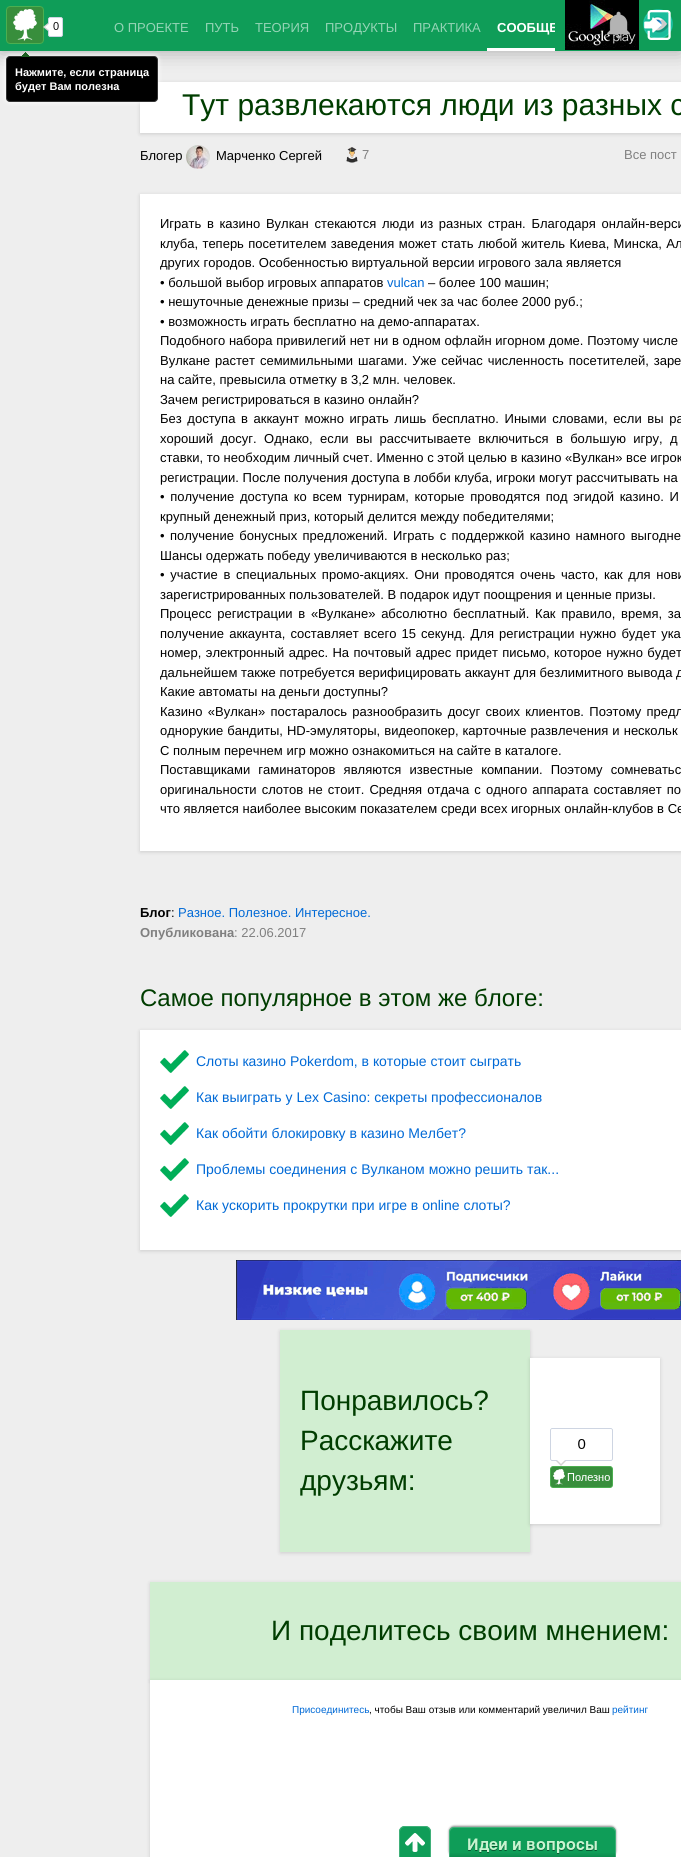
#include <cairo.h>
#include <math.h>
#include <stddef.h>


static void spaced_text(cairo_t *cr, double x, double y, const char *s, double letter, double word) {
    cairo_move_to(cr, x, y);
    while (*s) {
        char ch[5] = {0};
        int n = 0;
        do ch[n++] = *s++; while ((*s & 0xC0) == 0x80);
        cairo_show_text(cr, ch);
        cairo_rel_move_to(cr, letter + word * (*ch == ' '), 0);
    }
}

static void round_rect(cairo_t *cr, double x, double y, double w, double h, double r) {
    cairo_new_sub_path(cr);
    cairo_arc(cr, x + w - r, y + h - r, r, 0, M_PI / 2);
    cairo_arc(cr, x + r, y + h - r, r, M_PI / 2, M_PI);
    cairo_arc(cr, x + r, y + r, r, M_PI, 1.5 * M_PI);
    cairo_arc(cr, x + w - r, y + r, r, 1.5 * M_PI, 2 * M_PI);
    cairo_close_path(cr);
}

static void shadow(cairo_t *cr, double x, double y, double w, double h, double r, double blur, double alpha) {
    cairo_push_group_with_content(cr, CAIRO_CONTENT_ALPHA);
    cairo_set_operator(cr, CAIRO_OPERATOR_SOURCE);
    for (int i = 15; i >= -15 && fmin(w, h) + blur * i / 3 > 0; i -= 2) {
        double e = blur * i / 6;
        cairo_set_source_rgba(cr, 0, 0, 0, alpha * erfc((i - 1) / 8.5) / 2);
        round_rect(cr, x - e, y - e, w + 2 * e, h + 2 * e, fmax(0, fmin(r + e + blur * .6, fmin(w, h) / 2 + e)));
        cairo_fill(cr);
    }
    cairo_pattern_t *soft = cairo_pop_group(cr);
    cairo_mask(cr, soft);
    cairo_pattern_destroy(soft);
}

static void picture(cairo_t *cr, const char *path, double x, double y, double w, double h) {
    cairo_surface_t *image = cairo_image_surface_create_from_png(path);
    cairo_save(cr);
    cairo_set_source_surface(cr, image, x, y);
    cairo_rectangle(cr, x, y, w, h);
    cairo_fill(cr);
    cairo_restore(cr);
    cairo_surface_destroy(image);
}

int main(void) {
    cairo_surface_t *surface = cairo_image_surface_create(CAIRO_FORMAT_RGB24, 681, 1857);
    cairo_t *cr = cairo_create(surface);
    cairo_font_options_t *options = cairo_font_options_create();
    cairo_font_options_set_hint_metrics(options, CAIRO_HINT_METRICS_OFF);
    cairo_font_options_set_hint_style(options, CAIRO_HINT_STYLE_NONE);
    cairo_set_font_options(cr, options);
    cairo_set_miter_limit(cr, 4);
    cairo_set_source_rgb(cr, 0.933, 0.933, 0.933);
    cairo_paint(cr);
    cairo_set_source_rgb(cr, 0, 0, 0);
    shadow(cr, 0, 0, 681, 51, 0, 10, 0.3);
    cairo_set_source_rgb(cr, 0.059, 0.616, 0.345);
    cairo_rectangle(cr, 0, 0, 681, 51);
    cairo_fill(cr);
    picture(cr, "img1.png", 6, 6, 57, 38);
    picture(cr, "img2.png", 565, 0, 74, 50);
    picture(cr, "img3.png", 643, 9, 30, 29);
    cairo_select_font_face(cr, "Liberation Sans", CAIRO_FONT_SLANT_NORMAL, CAIRO_FONT_WEIGHT_NORMAL);
    cairo_set_font_size(cr, 13);
    cairo_set_source_rgb(cr, 0.584, 0.831, 0.714);
    cairo_move_to(cr, 114, 32);
    cairo_show_text(cr, "О ПРОЕКТЕ");
    cairo_move_to(cr, 205, 32);
    cairo_show_text(cr, "ПУТЬ");
    cairo_move_to(cr, 255, 32);
    cairo_show_text(cr, "ТЕОРИЯ");
    cairo_move_to(cr, 325, 32);
    cairo_show_text(cr, "ПРОДУКТЫ");
    cairo_move_to(cr, 413, 32);
    cairo_show_text(cr, "ПРАКТИКА");
    cairo_set_source_rgb(cr, 1, 1, 1);
    cairo_rectangle(cr, 487, 48, 68, 3);
    cairo_fill(cr);
    cairo_save(cr);
    cairo_rectangle(cr, 106, 4, 449, 47);
    cairo_clip(cr);
    cairo_select_font_face(cr, "Liberation Sans", CAIRO_FONT_SLANT_NORMAL, CAIRO_FONT_WEIGHT_BOLD);
    cairo_move_to(cr, 497, 32);
    cairo_show_text(cr, "СООБЩЕ");
    cairo_restore(cr);
    picture(cr, "img4.png", 607, 11, 23, 28);
    picture(cr, "img5.png", 644, 10, 27, 30);
    cairo_set_source_rgb(cr, 0, 0, 0);
    shadow(cr, 140, 83, 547, 51, 0, 2, 0.14);
    cairo_set_source_rgb(cr, 1, 1, 1);
    cairo_rectangle(cr, 140, 82, 541, 51);
    cairo_fill(cr);
    cairo_set_source_rgb(cr, 1, 1, 1);
    shadow(cr, 5, 55, 154, 48, 5, 2, 0.8);
    cairo_set_source_rgb(cr, 0, 0, 0);
    round_rect(cr, 6, 56, 152, 46, 4);
    cairo_fill(cr);
    round_rect(cr, 6.5, 56.5, 151, 45, 3.5);
    cairo_set_source_rgba(cr, 1, 1, 1, 0.2);
    cairo_set_line_width(cr, 1);
    cairo_stroke(cr);
    picture(cr, "img6.png", 21, 52, 9, 5);
    cairo_select_font_face(cr, "Liberation Sans", CAIRO_FONT_SLANT_NORMAL, CAIRO_FONT_WEIGHT_BOLD);
    cairo_set_font_size(cr, 11);
    cairo_set_source_rgb(cr, 1, 1, 1);
    cairo_move_to(cr, 15, 76);
    cairo_show_text(cr, "Нажмите, если страница");
    cairo_move_to(cr, 15, 90);
    cairo_show_text(cr, "будет Вам полезна");
    cairo_select_font_face(cr, "Liberation Sans", CAIRO_FONT_SLANT_NORMAL, CAIRO_FONT_WEIGHT_NORMAL);
    cairo_set_font_size(cr, 30);
    cairo_set_source_rgb(cr, 0, 0.239, 0);
    cairo_move_to(cr, 182, 115);
    cairo_show_text(cr, "Тут развлекаются люди из разных с");
    cairo_set_font_size(cr, 13);
    cairo_set_source_rgb(cr, 0, 0, 0);
    cairo_move_to(cr, 140, 160);
    cairo_show_text(cr, "Блогер");
    picture(cr, "img7.png", 186, 145, 24, 24);
    cairo_move_to(cr, 216, 160);
    cairo_show_text(cr, "Марченко Сергей");
    picture(cr, "img8.png", 346, 147, 12, 16);
    cairo_set_source_rgb(cr, 0.502, 0.502, 0.502);
    cairo_move_to(cr, 362, 159);
    cairo_show_text(cr, "7");
    cairo_move_to(cr, 624, 159);
    cairo_show_text(cr, "Все пост");
    cairo_set_source_rgb(cr, 0, 0, 0);
    shadow(cr, 140, 195, 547, 657, 0, 2, 0.14);
    cairo_set_source_rgb(cr, 1, 1, 1);
    cairo_rectangle(cr, 140, 194, 541, 657);
    cairo_fill(cr);
    cairo_set_source_rgb(cr, 0, 0, 0);
    spaced_text(cr, 160, 228, "Играть в казино Вулкан стекаются люди из разных стран. Благодаря онлайн-верси", 0, 2.1);
    spaced_text(cr, 160, 248, "клуба, теперь посетителем заведения может стать любой житель Киева, Минска, Ал", 0, 0.75);
    cairo_move_to(cr, 160, 267);
    cairo_show_text(cr, "других городов. Особенностью виртуальной версии игрового зала является");
    cairo_move_to(cr, 160, 287);
    cairo_show_text(cr, "• большой выбор игровых аппаратов");
    cairo_set_source_rgb(cr, 0, 0.412, 0.839);
    cairo_move_to(cr, 387, 287);
    cairo_show_text(cr, "vulcan");
    cairo_set_source_rgb(cr, 0, 0, 0);
    cairo_move_to(cr, 428, 287);
    cairo_show_text(cr, "– более 100 машин;");
    cairo_move_to(cr, 160, 306);
    cairo_show_text(cr, "• нешуточные денежные призы – средний чек за час более 2000 руб.;");
    cairo_move_to(cr, 160, 326);
    cairo_show_text(cr, "• возможность играть бесплатно на демо-аппаратах.");
    spaced_text(cr, 160, 345, "Подобного набора привилегий нет ни в одном офлайн игорном доме. Поэтому числе", 0, 0.1);
    spaced_text(cr, 160, 365, "Вулкане растет семимильными шагами. Уже сейчас численность посетителей, заре", 0, 1.25);
    cairo_move_to(cr, 160, 384);
    cairo_show_text(cr, "на сайте, превысила отметку в 3,2 млн. человек.");
    cairo_move_to(cr, 160, 404);
    cairo_show_text(cr, "Зачем регистрироваться в казино онлайн?");
    spaced_text(cr, 160, 423, "Без доступа в аккаунт можно играть лишь бесплатно. Иными словами, если вы ра", 0, 2);
    spaced_text(cr, 160, 443, "хороший досуг. Однако, если вы рассчитываете включиться в большую игру, д", 0, 3.75);
    cairo_move_to(cr, 160, 462);
    cairo_show_text(cr, "ставки, то необходим личный счет. Именно с этой целью в казино «Вулкан» все игрок");
    cairo_move_to(cr, 160, 482);
    cairo_show_text(cr, "регистрации. После получения доступа в лобби клуба, игроки могут рассчитывать на");
    spaced_text(cr, 160, 501, "• получение доступа ко всем турнирам, которые проводятся под эгидой казино. И", 0, 2.1);
    cairo_move_to(cr, 160, 521);
    cairo_show_text(cr, "крупный денежный приз, который делится между победителями;");
    spaced_text(cr, 160, 540, "• получение бонусных предложений. Играть с поддержкой казино намного выгодне", 0, 1.75);
    cairo_move_to(cr, 160, 560);
    cairo_show_text(cr, "Шансы одержать победу увеличиваются в несколько раз;");
    spaced_text(cr, 160, 579, "• участие в специальных промо-акциях. Они проводятся очень часто, как для нови", 0, 2.1);
    cairo_move_to(cr, 160, 599);
    cairo_show_text(cr, "зарегистрированных пользователей. В подарок идут поощрения и ценные призы.");
    spaced_text(cr, 160, 618, "Процесс регистрации в «Вулкане» абсолютно бесплатный. Как правило, время, за", 0, 2.1);
    spaced_text(cr, 160, 638, "получение аккаунта, составляет всего 15 секунд. Для регистрации нужно будет ука", 0, 1.5);
    spaced_text(cr, 160, 657, "номер, электронный адрес. На почтовый адрес придет письмо, которое нужно будет", 0, 0.75);
    cairo_move_to(cr, 160, 677);
    cairo_show_text(cr, "дальнейшем также потребуется верифицировать аккаунт для безлимитного вывода д");
    cairo_move_to(cr, 160, 696);
    cairo_show_text(cr, "Какие автоматы на деньги доступны?");
    spaced_text(cr, 160, 716, "Казино «Вулкан» постаралось разнообразить досуг своих клиентов. Поэтому предл", 0, 1.75);
    spaced_text(cr, 160, 735, "однорукие бандиты, HD-эмуляторы, видеопокер, карточные развлечения и нескольк", 0, 0.5);
    cairo_move_to(cr, 160, 755);
    cairo_show_text(cr, "С полным перечнем игр можно ознакомиться на сайте в каталоге.");
    spaced_text(cr, 160, 774, "Поставщиками гаминаторов являются известные компании. Поэтому сомневатьс", 0, 4.5);
    spaced_text(cr, 160, 794, "оригинальности слотов не стоит. Средняя отдача с одного аппарата составляет по", 0, 1.5);
    cairo_move_to(cr, 160, 813);
    cairo_show_text(cr, "что является наиболее высоким показателем среди всех игорных онлайн-клубов в Се");
    cairo_select_font_face(cr, "Liberation Sans", CAIRO_FONT_SLANT_NORMAL, CAIRO_FONT_WEIGHT_BOLD);
    cairo_move_to(cr, 140, 917);
    cairo_show_text(cr, "Блог");
    cairo_select_font_face(cr, "Liberation Sans", CAIRO_FONT_SLANT_NORMAL, CAIRO_FONT_WEIGHT_NORMAL);
    cairo_move_to(cr, 171, 917);
    cairo_show_text(cr, ":");
    cairo_set_source_rgb(cr, 0, 0.412, 0.839);
    cairo_move_to(cr, 178, 917);
    cairo_show_text(cr, "Разное. Полезное. Интересное.");
    cairo_select_font_face(cr, "Liberation Sans", CAIRO_FONT_SLANT_NORMAL, CAIRO_FONT_WEIGHT_BOLD);
    cairo_set_source_rgb(cr, 0.502, 0.502, 0.502);
    cairo_move_to(cr, 140, 937);
    cairo_show_text(cr, "Опубликована");
    cairo_select_font_face(cr, "Liberation Sans", CAIRO_FONT_SLANT_NORMAL, CAIRO_FONT_WEIGHT_NORMAL);
    cairo_move_to(cr, 234, 937);
    cairo_show_text(cr, ": 22.06.2017");
    cairo_set_font_size(cr, 24);
    cairo_set_source_rgb(cr, 0, 0.239, 0);
    cairo_move_to(cr, 140, 1006);
    cairo_show_text(cr, "Самое популярное в этом же блоге:");
    cairo_set_source_rgb(cr, 0, 0, 0);
    shadow(cr, 140, 1031, 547, 220, 0, 2, 0.14);
    cairo_set_source_rgb(cr, 1, 1, 1);
    cairo_rectangle(cr, 140, 1030, 541, 220);
    cairo_fill(cr);
    picture(cr, "img9.png", 160, 1050, 29, 23);
    cairo_set_font_size(cr, 14);
    cairo_set_source_rgb(cr, 0, 0.412, 0.839);
    cairo_move_to(cr, 196, 1066);
    cairo_show_text(cr, "Слоты казино Pokerdom, в которые стоит сыграть");
    picture(cr, "img9.png", 160, 1086, 29, 23);
    cairo_move_to(cr, 196, 1102);
    cairo_show_text(cr, "Как выиграть у Lex Сasino: секреты профессионалов");
    picture(cr, "img9.png", 160, 1122, 29, 23);
    cairo_move_to(cr, 196, 1138);
    cairo_show_text(cr, "Как обойти блокировку в казино Мелбет?");
    picture(cr, "img9.png", 160, 1158, 29, 23);
    cairo_move_to(cr, 196, 1174);
    cairo_show_text(cr, "Проблемы соединения с Вулканом можно решить так...");
    picture(cr, "img9.png", 160, 1194, 29, 23);
    cairo_move_to(cr, 196, 1210);
    cairo_show_text(cr, "Как ускорить прокрутки при игре в online слоты?");
    picture(cr, "img10.png", 236, 1260, 445, 60);
    cairo_set_source_rgb(cr, 0, 0, 0);
    shadow(cr, 280, 1331, 250, 222, 0, 2, 0.14);
    cairo_set_source_rgb(cr, 0.82, 0.933, 0.82);
    cairo_rectangle(cr, 280, 1330, 250, 222);
    cairo_fill(cr);
    cairo_set_font_size(cr, 28);
    cairo_set_source_rgb(cr, 0, 0.239, 0);
    cairo_move_to(cr, 300, 1410);
    cairo_show_text(cr, "Понравилось?");
    cairo_move_to(cr, 300, 1450);
    cairo_show_text(cr, "Расскажите");
    cairo_move_to(cr, 300, 1490);
    cairo_show_text(cr, "друзьям:");
    cairo_set_source_rgb(cr, 0, 0, 0);
    shadow(cr, 530, 1359, 130, 166, 0, 2, 0.14);
    cairo_set_source_rgb(cr, 1, 1, 1);
    cairo_rectangle(cr, 530, 1358, 130, 166);
    cairo_fill(cr);
    picture(cr, "img11.png", 550, 1428, 63, 60);
    cairo_set_source_rgb(cr, 0, 0, 0);
    shadow(cr, 150, 1583, 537, 98, 0, 2, 0.14);
    cairo_set_source_rgb(cr, 0.82, 0.933, 0.82);
    cairo_rectangle(cr, 150, 1582, 531, 98);
    cairo_fill(cr);
    cairo_set_source_rgb(cr, 0, 0.239, 0);
    cairo_move_to(cr, 271, 1640);
    cairo_show_text(cr, "И поделитесь своим мнением:");
    cairo_set_source_rgb(cr, 0, 0, 0);
    shadow(cr, 150, 1681, 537, 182, 0, 2, 0.14);
    cairo_set_source_rgb(cr, 1, 1, 1);
    cairo_rectangle(cr, 150, 1680, 531, 177);
    cairo_fill(cr);
    cairo_set_font_size(cr, 10);
    cairo_set_source_rgb(cr, 0, 0.412, 0.839);
    cairo_move_to(cr, 292, 1713);
    cairo_show_text(cr, "Присоединитесь");
    cairo_set_source_rgb(cr, 0, 0, 0);
    cairo_move_to(cr, 369, 1713);
    cairo_show_text(cr, ", чтобы Ваш отзыв или комментарий увеличил Ваш");
    cairo_set_source_rgb(cr, 0, 0.412, 0.839);
    cairo_move_to(cr, 612, 1713);
    cairo_show_text(cr, "рейтинг");
    cairo_set_source_rgb(cr, 0.059, 0.616, 0.345);
    cairo_new_path(cr);
    cairo_move_to(cr, 405, 1826);
    cairo_line_to(cr, 425, 1826);
    cairo_curve_to(cr, 428.5, 1826, 431, 1828.5, 431, 1832);
    cairo_line_to(cr, 431, 1857);
    cairo_line_to(cr, 399, 1857);
    cairo_line_to(cr, 399, 1832);
    cairo_curve_to(cr, 399, 1828.5, 401.5, 1826, 405, 1826);
    cairo_close_path(cr);
    cairo_fill(cr);
    picture(cr, "img12.png", 405, 1833, 20, 19);
    cairo_set_source_rgb(cr, 0.247, 0.69, 0.475);
    cairo_set_fill_rule(cr, CAIRO_FILL_RULE_EVEN_ODD);
    cairo_new_path(cr);
    cairo_move_to(cr, 405, 1826);
    cairo_line_to(cr, 425, 1826);
    cairo_curve_to(cr, 428.5, 1826, 431, 1828.5, 431, 1832);
    cairo_line_to(cr, 431, 1857);
    cairo_line_to(cr, 399, 1857);
    cairo_line_to(cr, 399, 1832);
    cairo_curve_to(cr, 399, 1828.5, 401.5, 1826, 405, 1826);
    cairo_close_path(cr);
    cairo_move_to(cr, 405, 1827);
    cairo_line_to(cr, 425, 1827);
    cairo_curve_to(cr, 428, 1827, 430, 1829, 430, 1832);
    cairo_line_to(cr, 430, 1857);
    cairo_line_to(cr, 400, 1857);
    cairo_line_to(cr, 400, 1832);
    cairo_curve_to(cr, 400, 1829, 402, 1827, 405, 1827);
    cairo_close_path(cr);
    cairo_fill(cr);
    cairo_set_source_rgb(cr, 0.533, 0.533, 0.533);
    shadow(cr, 449, 1826, 167, 30, 5, 1, 1);
    cairo_set_source_rgb(cr, 0.059, 0.616, 0.345);
    cairo_new_path(cr);
    cairo_move_to(cr, 454, 1827);
    cairo_line_to(cr, 611, 1827);
    cairo_curve_to(cr, 614, 1827, 616, 1829, 616, 1832);
    cairo_line_to(cr, 616, 1857);
    cairo_line_to(cr, 449, 1857);
    cairo_line_to(cr, 449, 1832);
    cairo_curve_to(cr, 449, 1829, 451, 1827, 454, 1827);
    cairo_close_path(cr);
    cairo_fill(cr);
    picture(cr, "img13.png", 449, 1853, 167, 4);
    cairo_set_source_rgba(cr, 1, 1, 1, 0.2);
    cairo_new_path(cr);
    cairo_move_to(cr, 454, 1827);
    cairo_line_to(cr, 611, 1827);
    cairo_curve_to(cr, 614, 1827, 616, 1829, 616, 1832);
    cairo_line_to(cr, 616, 1857);
    cairo_line_to(cr, 449, 1857);
    cairo_line_to(cr, 449, 1832);
    cairo_curve_to(cr, 449, 1829, 451, 1827, 454, 1827);
    cairo_close_path(cr);
    cairo_move_to(cr, 454, 1828);
    cairo_line_to(cr, 611, 1828);
    cairo_curve_to(cr, 613, 1828, 615, 1830, 615, 1832);
    cairo_line_to(cr, 615, 1857);
    cairo_line_to(cr, 450, 1857);
    cairo_line_to(cr, 450, 1832);
    cairo_curve_to(cr, 450, 1830, 452, 1828, 454, 1828);
    cairo_close_path(cr);
    cairo_fill(cr);
    picture(cr, "img14.png", 468, 1838, 129, 16);
    cairo_surface_write_to_png(surface, "page.png");
    cairo_font_options_destroy(options);
    cairo_destroy(cr);
    cairo_surface_destroy(surface);
    return 0;
}
